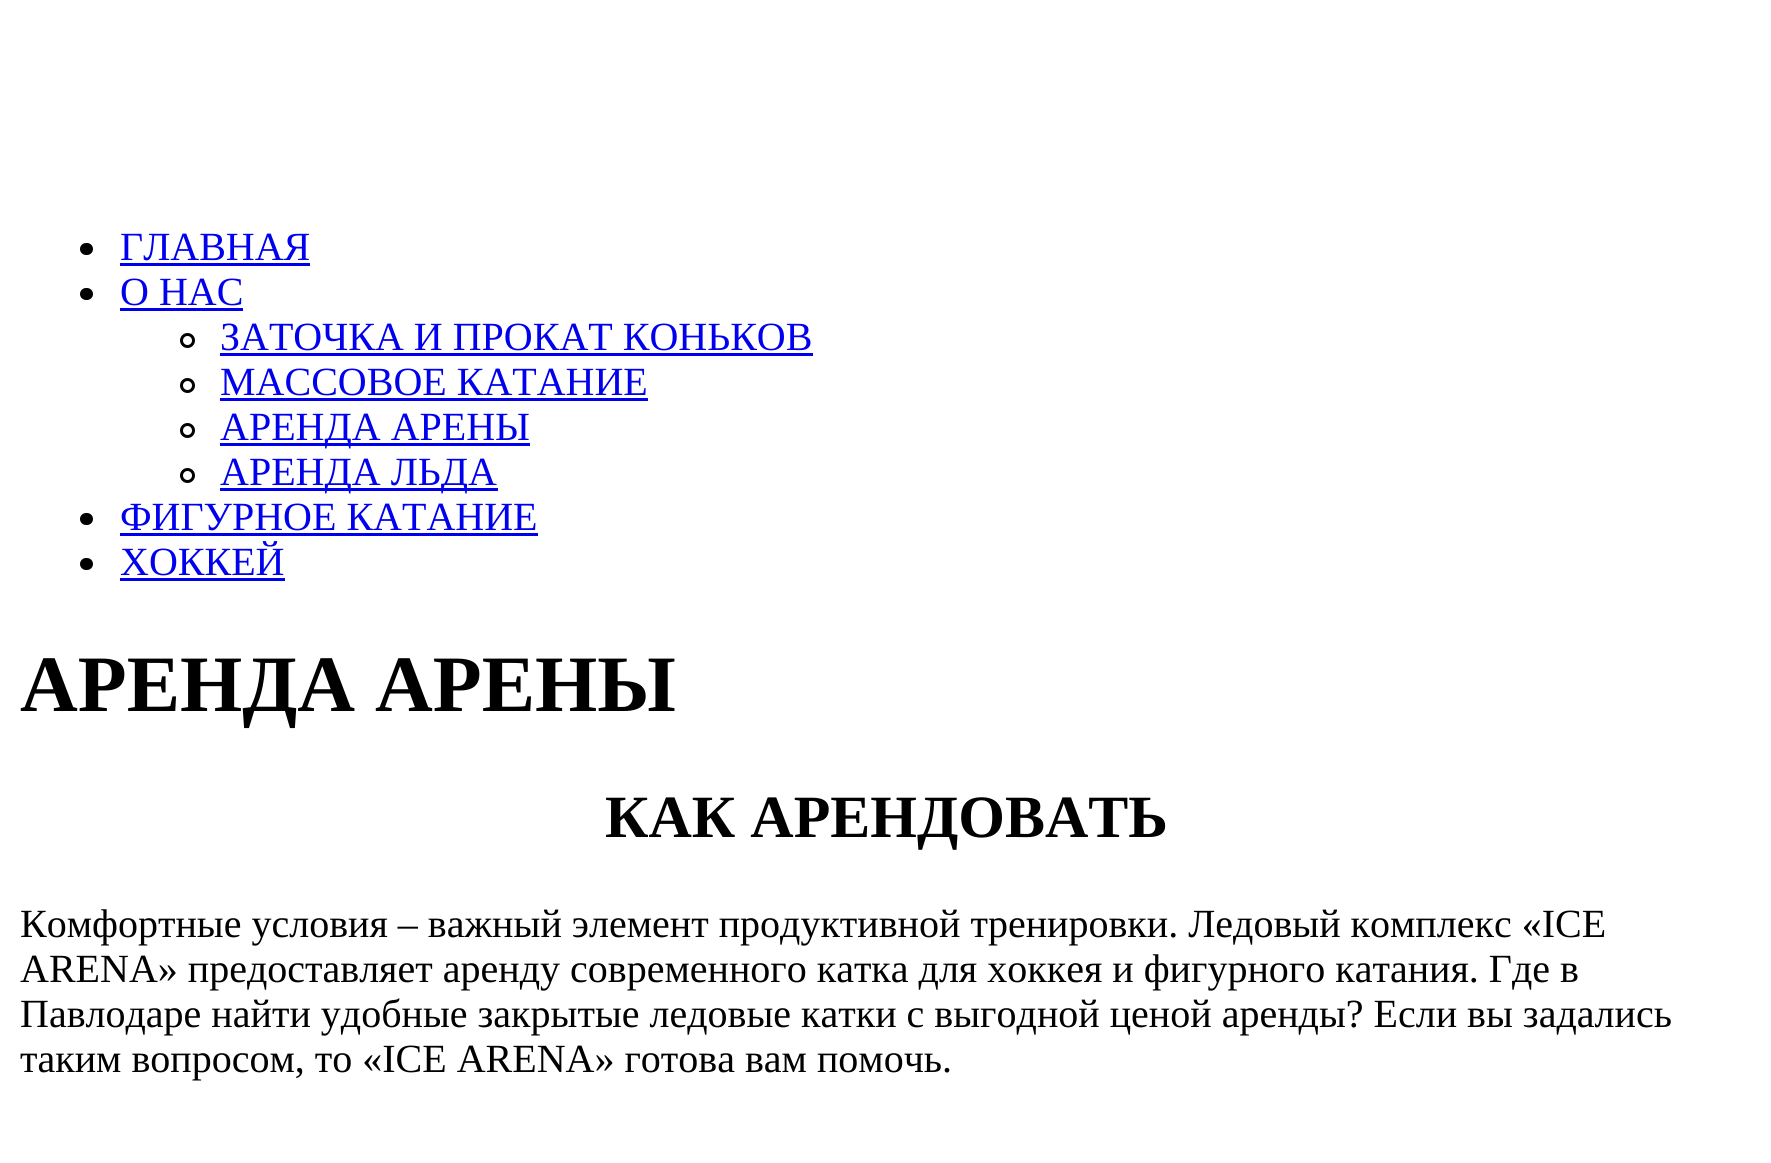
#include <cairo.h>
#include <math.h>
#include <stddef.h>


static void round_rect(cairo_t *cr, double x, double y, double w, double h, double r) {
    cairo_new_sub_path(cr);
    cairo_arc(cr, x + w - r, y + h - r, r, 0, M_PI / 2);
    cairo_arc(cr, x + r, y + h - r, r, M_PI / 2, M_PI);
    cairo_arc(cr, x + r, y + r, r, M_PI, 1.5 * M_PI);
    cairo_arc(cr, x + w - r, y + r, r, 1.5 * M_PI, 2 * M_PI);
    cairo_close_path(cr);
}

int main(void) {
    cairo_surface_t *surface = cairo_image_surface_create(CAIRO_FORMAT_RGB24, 1771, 1163);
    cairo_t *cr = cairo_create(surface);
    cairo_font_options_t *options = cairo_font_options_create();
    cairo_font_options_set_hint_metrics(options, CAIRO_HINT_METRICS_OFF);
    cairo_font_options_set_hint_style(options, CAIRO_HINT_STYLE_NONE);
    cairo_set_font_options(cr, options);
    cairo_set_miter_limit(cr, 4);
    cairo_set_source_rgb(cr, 1, 1, 1);
    cairo_paint(cr);
    cairo_set_source_rgb(cr, 0, 0, 0);
    round_rect(cr, 80, 243, 13, 12, 6);
    cairo_fill(cr);
    cairo_select_font_face(cr, "Liberation Serif", CAIRO_FONT_SLANT_NORMAL, CAIRO_FONT_WEIGHT_NORMAL);
    cairo_set_font_size(cr, 40);
    cairo_set_source_rgb(cr, 0, 0, 0.933);
    cairo_move_to(cr, 120, 260);
    cairo_show_text(cr, "ГЛАВНАЯ");
    cairo_rectangle(cr, 120, 263, 190, 3);
    cairo_fill(cr);
    cairo_set_source_rgb(cr, 0, 0, 0);
    round_rect(cr, 80, 288, 13, 12, 6);
    cairo_fill(cr);
    cairo_set_source_rgb(cr, 0, 0, 0.933);
    cairo_move_to(cr, 120, 305);
    cairo_show_text(cr, "О НАС");
    cairo_rectangle(cr, 120, 308, 123, 3);
    cairo_fill(cr);
    cairo_arc(cr, 187.5, 340.5, 6, 0, 2 * M_PI);
    cairo_set_source_rgb(cr, 0, 0, 0);
    cairo_set_line_width(cr, 3);
    cairo_stroke(cr);
    cairo_set_source_rgb(cr, 0, 0, 0.933);
    cairo_move_to(cr, 220, 350);
    cairo_show_text(cr, "ЗАТОЧКА И ПРОКАТ КОНЬКОВ");
    cairo_rectangle(cr, 220, 353, 593, 3);
    cairo_fill(cr);
    cairo_arc(cr, 187.5, 385.5, 6, 0, 2 * M_PI);
    cairo_set_source_rgb(cr, 0, 0, 0);
    cairo_stroke(cr);
    cairo_set_source_rgb(cr, 0, 0, 0.933);
    cairo_move_to(cr, 220, 395);
    cairo_show_text(cr, "МАССОВОЕ КАТАНИЕ");
    cairo_rectangle(cr, 220, 398, 428, 3);
    cairo_fill(cr);
    cairo_arc(cr, 187.5, 430.5, 6, 0, 2 * M_PI);
    cairo_set_source_rgb(cr, 0, 0, 0);
    cairo_stroke(cr);
    cairo_set_source_rgb(cr, 0, 0, 0.933);
    cairo_rectangle(cr, 220, 443, 310, 3);
    cairo_fill(cr);
    cairo_move_to(cr, 220, 440);
    cairo_show_text(cr, "АРЕНДА АРЕНЫ");
    cairo_new_path(cr);
    cairo_arc(cr, 187.5, 475.5, 6, 0, 2 * M_PI);
    cairo_set_source_rgb(cr, 0, 0, 0);
    cairo_stroke(cr);
    cairo_set_source_rgb(cr, 0, 0, 0.933);
    cairo_rectangle(cr, 220, 488, 278, 3);
    cairo_fill(cr);
    cairo_move_to(cr, 220, 485);
    cairo_show_text(cr, "АРЕНДА ЛЬДА");
    cairo_set_source_rgb(cr, 0, 0, 0);
    round_rect(cr, 80, 513, 13, 12, 6);
    cairo_fill(cr);
    cairo_set_source_rgb(cr, 0, 0, 0.933);
    cairo_move_to(cr, 120, 530);
    cairo_show_text(cr, "ФИГУРНОЕ КАТАНИЕ");
    cairo_rectangle(cr, 120, 533, 418, 3);
    cairo_fill(cr);
    cairo_set_source_rgb(cr, 0, 0, 0);
    round_rect(cr, 80, 558, 13, 12, 6);
    cairo_fill(cr);
    cairo_set_source_rgb(cr, 0, 0, 0.933);
    cairo_move_to(cr, 120, 575);
    cairo_show_text(cr, "ХОККЕЙ");
    cairo_rectangle(cr, 120, 578, 165, 3);
    cairo_fill(cr);
    cairo_select_font_face(cr, "Liberation Serif", CAIRO_FONT_SLANT_NORMAL, CAIRO_FONT_WEIGHT_BOLD);
    cairo_set_font_size(cr, 80);
    cairo_set_source_rgb(cr, 0, 0, 0);
    cairo_move_to(cr, 20, 711);
    cairo_show_text(cr, "АРЕНДА АРЕНЫ");
    cairo_set_font_size(cr, 60);
    cairo_move_to(cr, 605, 837);
    cairo_show_text(cr, "КАК АРЕНДОВАТЬ");
    cairo_select_font_face(cr, "Liberation Serif", CAIRO_FONT_SLANT_NORMAL, CAIRO_FONT_WEIGHT_NORMAL);
    cairo_set_font_size(cr, 40);
    cairo_move_to(cr, 20, 937);
    cairo_show_text(cr, "Комфортные условия – важный элемент продуктивной тренировки. Ледовый комплекс «ICE");
    cairo_move_to(cr, 20, 982);
    cairo_show_text(cr, "ARENA» предоставляет аренду современного катка для хоккея и фигурного катания. Где в");
    cairo_move_to(cr, 20, 1027);
    cairo_show_text(cr, "Павлодаре найти удобные закрытые ледовые катки с выгодной ценой аренды? Если вы задались");
    cairo_move_to(cr, 20, 1072);
    cairo_show_text(cr, "таким вопросом, то «ICE ARENA» готова вам помочь.");
    cairo_surface_write_to_png(surface, "page.png");
    cairo_font_options_destroy(options);
    cairo_destroy(cr);
    cairo_surface_destroy(surface);
    return 0;
}
